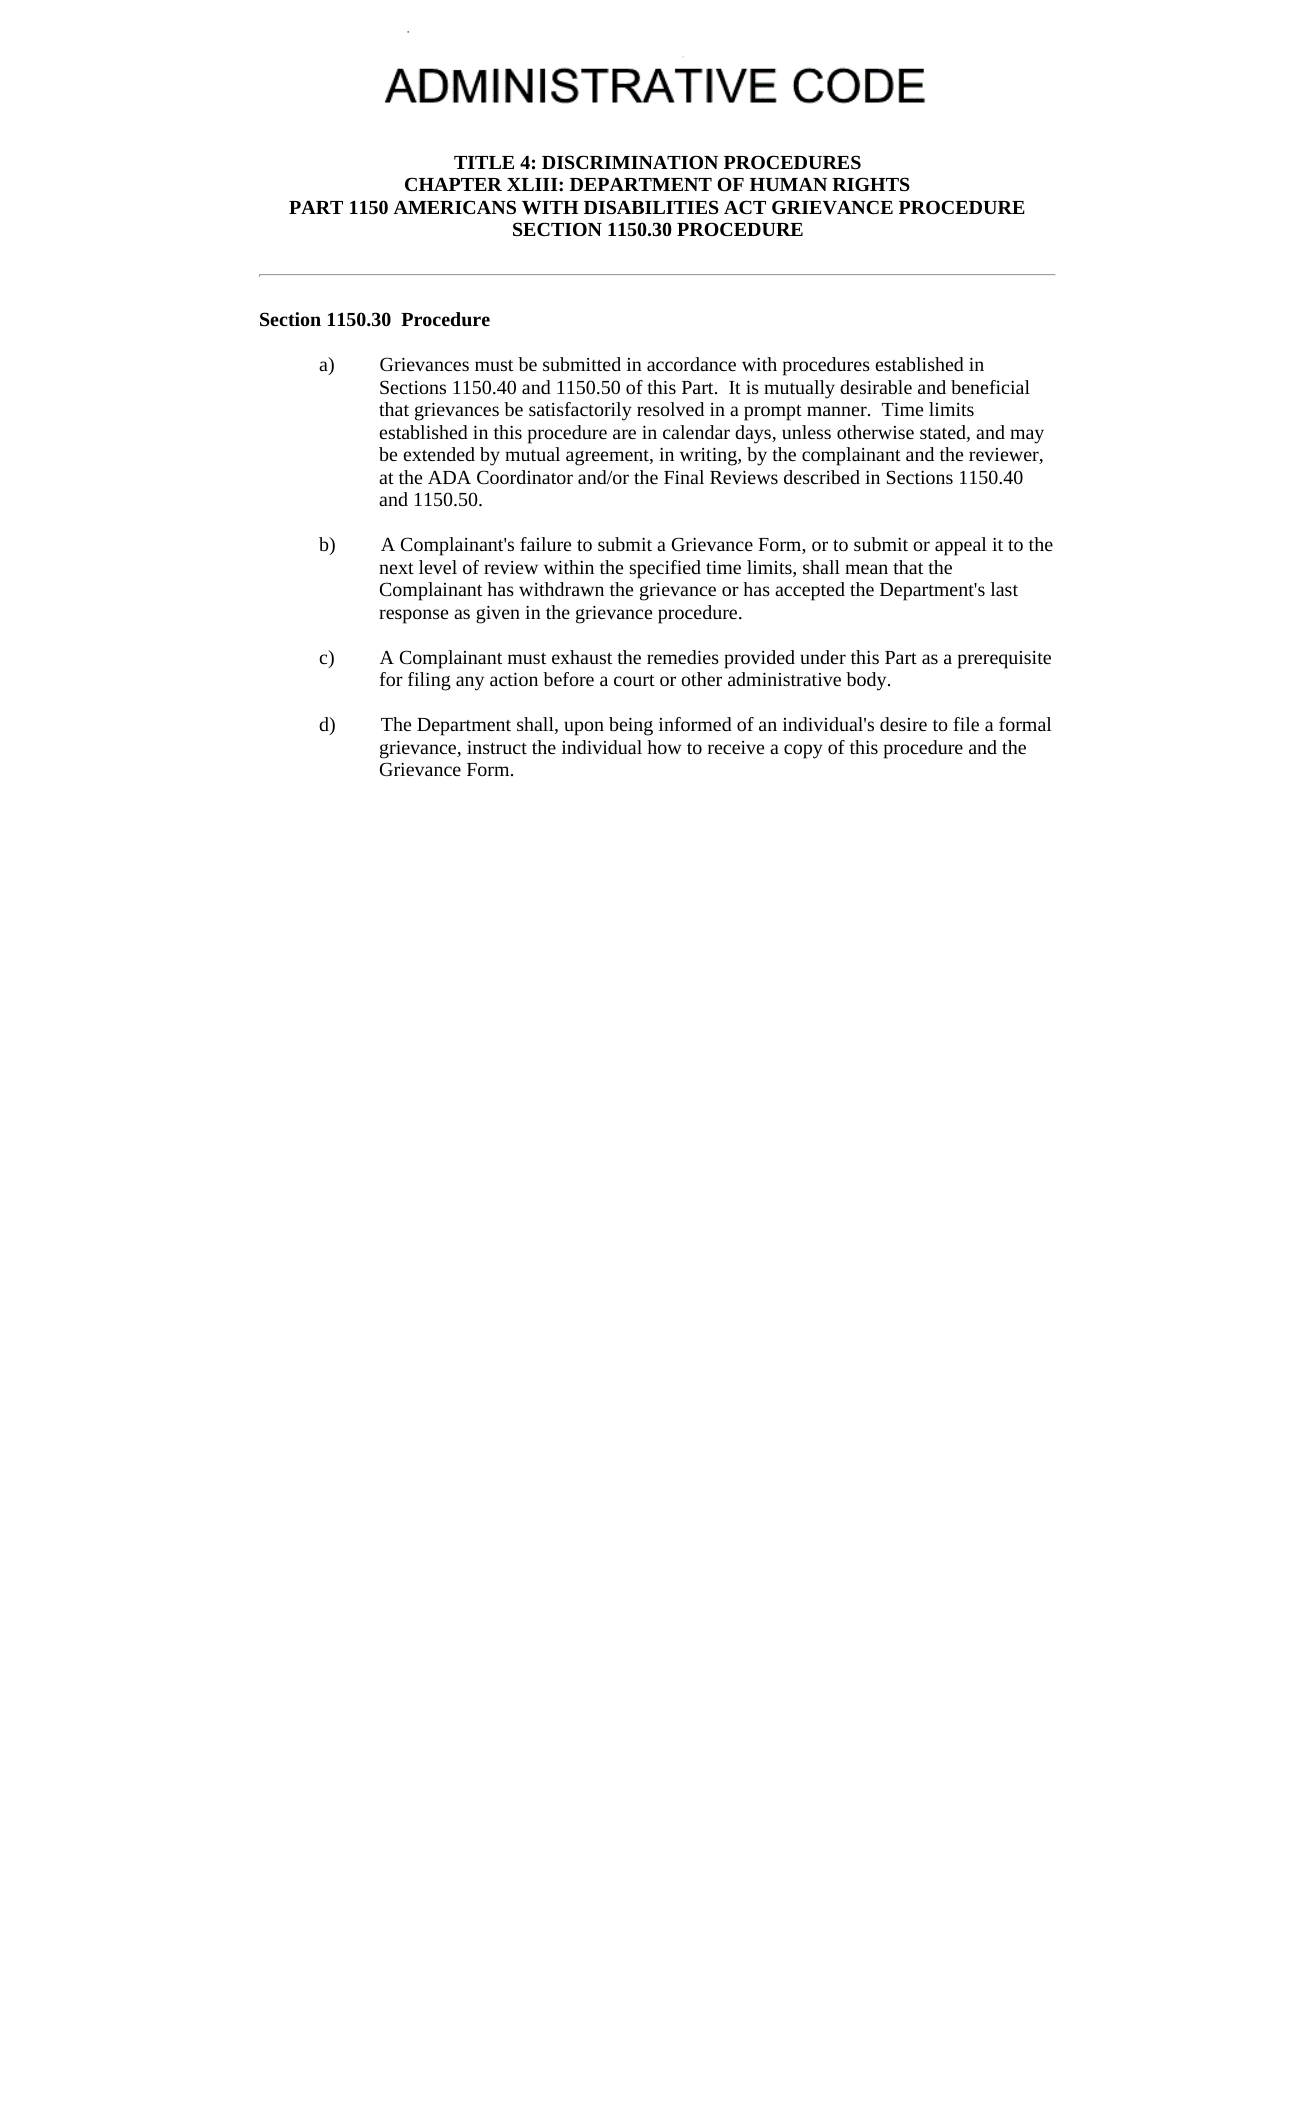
#include <cairo.h>
#include <math.h>
#include <stddef.h>


static void picture(cairo_t *cr, const char *path, double x, double y, double w, double h) {
    cairo_surface_t *image = cairo_image_surface_create_from_png(path);
    cairo_save(cr);
    cairo_set_source_surface(cr, image, x, y);
    cairo_rectangle(cr, x, y, w, h);
    cairo_fill(cr);
    cairo_restore(cr);
    cairo_surface_destroy(image);
}

int main(void) {
    cairo_surface_t *surface = cairo_image_surface_create(CAIRO_FORMAT_RGB24, 1315, 2115);
    cairo_t *cr = cairo_create(surface);
    cairo_font_options_t *options = cairo_font_options_create();
    cairo_font_options_set_hint_metrics(options, CAIRO_HINT_METRICS_OFF);
    cairo_font_options_set_hint_style(options, CAIRO_HINT_STYLE_NONE);
    cairo_set_font_options(cr, options);
    cairo_set_miter_limit(cr, 4);
    cairo_set_source_rgb(cr, 1, 1, 1);
    cairo_paint(cr);
    picture(cr, "img1.png", 384, 31, 542, 73);
    cairo_select_font_face(cr, "Liberation Serif", CAIRO_FONT_SLANT_NORMAL, CAIRO_FONT_WEIGHT_BOLD);
    cairo_set_font_size(cr, 20);
    cairo_set_source_rgb(cr, 0, 0, 0);
    cairo_move_to(cr, 454, 169);
    cairo_show_text(cr, "TITLE 4: DISCRIMINATION PROCEDURES");
    cairo_move_to(cr, 404, 191);
    cairo_show_text(cr, "CHAPTER XLIII: DEPARTMENT OF HUMAN RIGHTS");
    cairo_move_to(cr, 289, 214);
    cairo_show_text(cr, "PART 1150 AMERICANS WITH DISABILITIES ACT GRIEVANCE PROCEDURE");
    cairo_move_to(cr, 512, 236);
    cairo_show_text(cr, "SECTION 1150.30 PROCEDURE");
    cairo_set_source_rgb(cr, 0.624, 0.624, 0.624);
    cairo_rectangle(cr, 259, 274, 797, 1);
    cairo_fill(cr);
    cairo_set_source_rgb(cr, 0.933, 0.933, 0.933);
    cairo_rectangle(cr, 1055, 274, 1, 3);
    cairo_fill(cr);
    cairo_rectangle(cr, 259, 275, 797, 1);
    cairo_fill(cr);
    cairo_set_source_rgb(cr, 0.624, 0.624, 0.624);
    cairo_rectangle(cr, 259, 274, 1, 3);
    cairo_fill(cr);
    cairo_set_source_rgb(cr, 0, 0, 0);
    cairo_move_to(cr, 259, 326);
    cairo_show_text(cr, "Section 1150.30  Procedure");
    cairo_select_font_face(cr, "Liberation Serif", CAIRO_FONT_SLANT_NORMAL, CAIRO_FONT_WEIGHT_NORMAL);
    cairo_move_to(cr, 319, 371);
    cairo_show_text(cr, "a)         Grievances must be submitted in accordance with procedures established in");
    cairo_move_to(cr, 379, 394);
    cairo_show_text(cr, "Sections 1150.40 and 1150.50 of this Part.  It is mutually desirable and beneficial");
    cairo_move_to(cr, 379, 416);
    cairo_show_text(cr, "that grievances be satisfactorily resolved in a prompt manner.  Time limits");
    cairo_move_to(cr, 379, 439);
    cairo_show_text(cr, "established in this procedure are in calendar days, unless otherwise stated, and may");
    cairo_move_to(cr, 379, 461);
    cairo_show_text(cr, "be extended by mutual agreement, in writing, by the complainant and the reviewer,");
    cairo_move_to(cr, 379, 484);
    cairo_show_text(cr, "at the ADA Coordinator and/or the Final Reviews described in Sections 1150.40");
    cairo_move_to(cr, 379, 506);
    cairo_show_text(cr, "and 1150.50.");
    cairo_move_to(cr, 319, 551);
    cairo_show_text(cr, "b)         A Complainant's failure to submit a Grievance Form, or to submit or appeal it to the");
    cairo_move_to(cr, 379, 574);
    cairo_show_text(cr, "next level of review within the specified time limits, shall mean that the");
    cairo_move_to(cr, 379, 596);
    cairo_show_text(cr, "Complainant has withdrawn the grievance or has accepted the Department's last");
    cairo_move_to(cr, 379, 619);
    cairo_show_text(cr, "response as given in the grievance procedure.");
    cairo_move_to(cr, 319, 664);
    cairo_show_text(cr, "c)         A Complainant must exhaust the remedies provided under this Part as a prerequisite");
    cairo_move_to(cr, 379, 686);
    cairo_show_text(cr, "for filing any action before a court or other administrative body.");
    cairo_move_to(cr, 319, 731);
    cairo_show_text(cr, "d)         The Department shall, upon being informed of an individual's desire to file a formal");
    cairo_move_to(cr, 379, 754);
    cairo_show_text(cr, "grievance, instruct the individual how to receive a copy of this procedure and the");
    cairo_move_to(cr, 379, 776);
    cairo_show_text(cr, "Grievance Form.");
    cairo_surface_write_to_png(surface, "page.png");
    cairo_font_options_destroy(options);
    cairo_destroy(cr);
    cairo_surface_destroy(surface);
    return 0;
}
